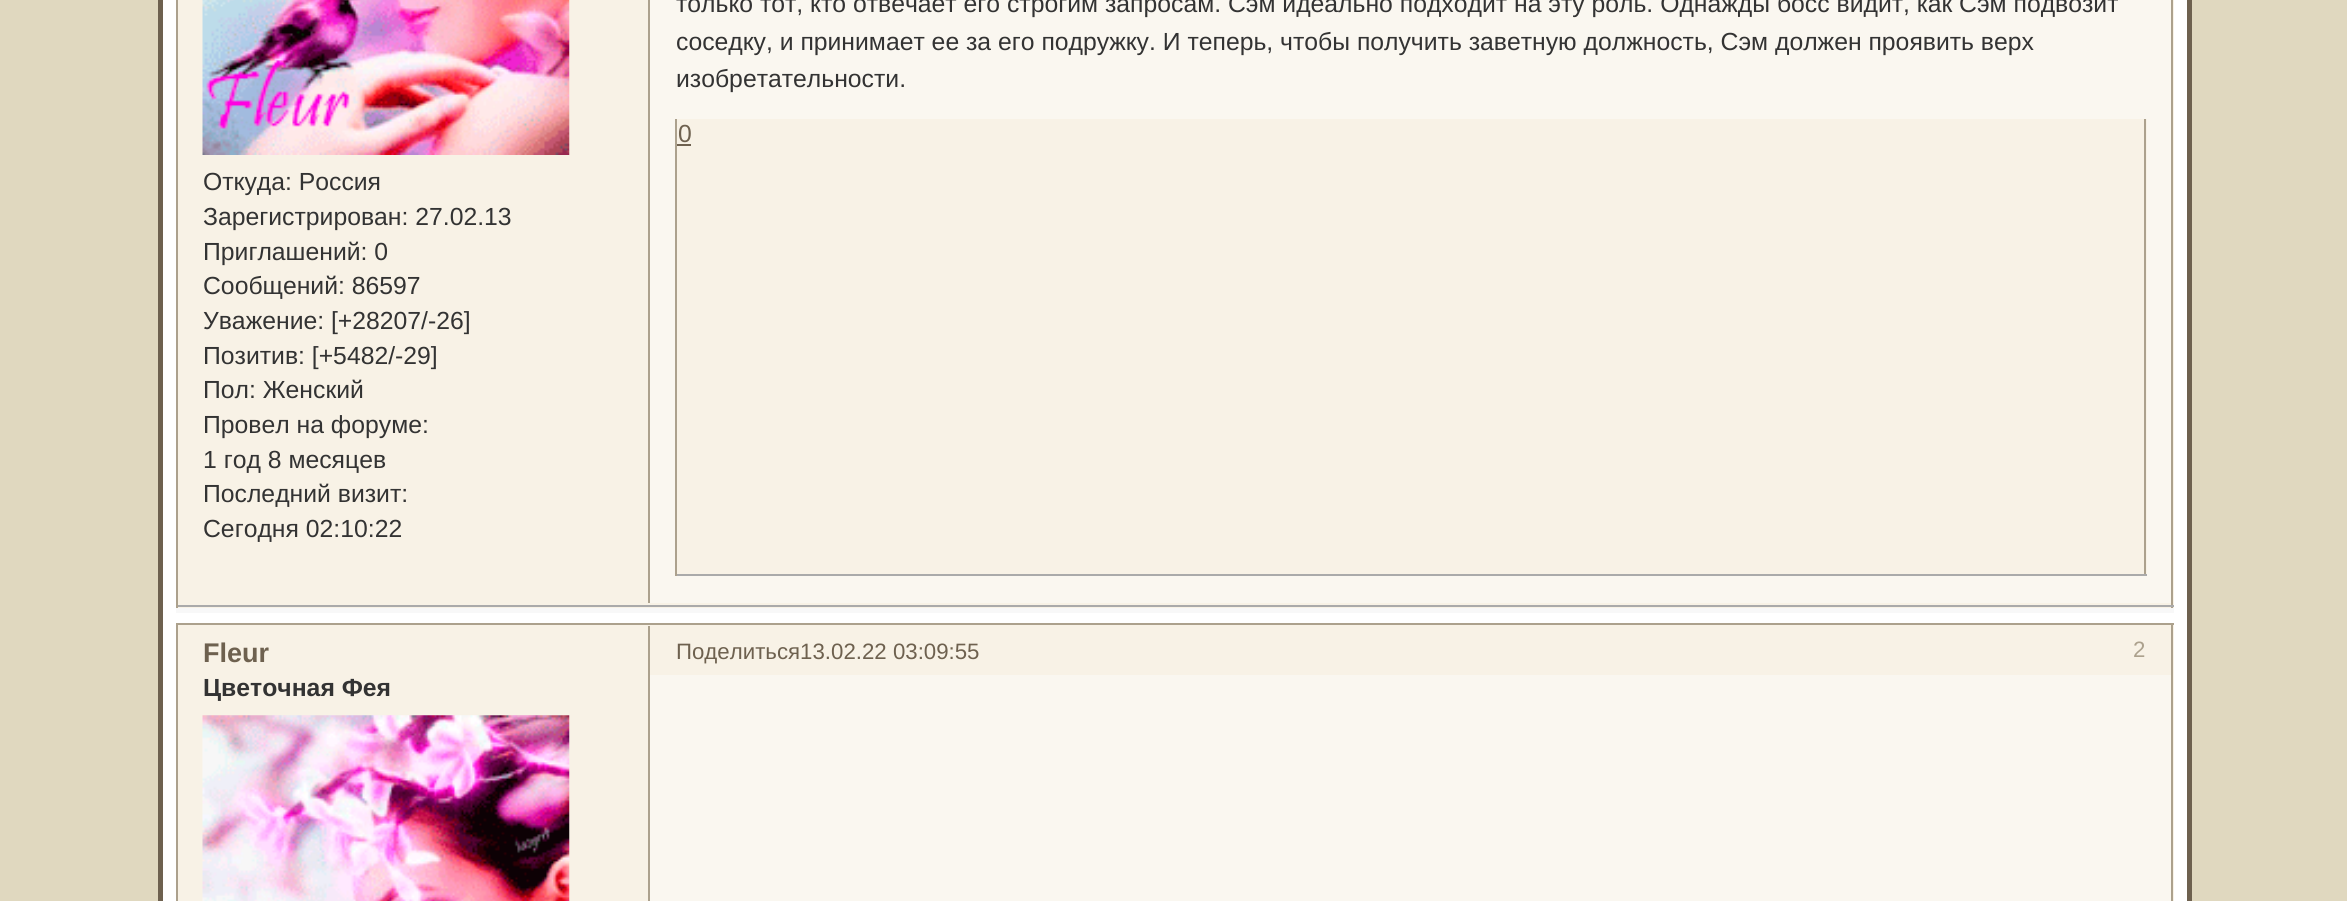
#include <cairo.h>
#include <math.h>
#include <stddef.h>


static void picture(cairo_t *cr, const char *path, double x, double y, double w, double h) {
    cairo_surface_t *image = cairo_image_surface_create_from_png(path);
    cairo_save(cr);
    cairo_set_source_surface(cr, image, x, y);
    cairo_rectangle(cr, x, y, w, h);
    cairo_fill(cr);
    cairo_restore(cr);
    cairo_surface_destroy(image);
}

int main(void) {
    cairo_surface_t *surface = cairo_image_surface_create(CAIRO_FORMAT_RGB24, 2347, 901);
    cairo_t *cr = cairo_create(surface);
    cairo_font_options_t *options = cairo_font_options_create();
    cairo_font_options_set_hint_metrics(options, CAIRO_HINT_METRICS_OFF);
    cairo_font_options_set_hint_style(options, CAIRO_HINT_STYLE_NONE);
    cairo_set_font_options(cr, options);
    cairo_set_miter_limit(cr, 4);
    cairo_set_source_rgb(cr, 0.878, 0.847, 0.749);
    cairo_paint(cr);
    cairo_set_source_rgb(cr, 1, 1, 1);
    cairo_rectangle(cr, 160.5, -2.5, 2029, 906);
    cairo_fill_preserve(cr);
    cairo_set_source_rgb(cr, 0.431, 0.38, 0.31);
    cairo_set_line_width(cr, 5);
    cairo_stroke(cr);
    cairo_set_source_rgb(cr, 0.969, 0.969, 0.969);
    cairo_rectangle(cr, 176, 608, 1998, 5);
    cairo_fill(cr);
    cairo_set_source_rgb(cr, 0.969, 0.949, 0.902);
    cairo_rectangle(cr, 178, 0, 1996, 608);
    cairo_fill(cr);
    cairo_set_source_rgb(cr, 0.675, 0.631, 0.553);
    cairo_rectangle(cr, 2171, 0, 2, 608);
    cairo_fill(cr);
    cairo_set_source_rgb(cr, 0.667, 0.667, 0.667);
    cairo_rectangle(cr, 176, 605, 1998, 2);
    cairo_fill(cr);
    cairo_set_source_rgb(cr, 0.675, 0.631, 0.553);
    cairo_rectangle(cr, 176, 0, 2, 608);
    cairo_fill(cr);
    cairo_set_source_rgb(cr, 0.98, 0.965, 0.941);
    cairo_rectangle(cr, 650, 0, 1521, 603);
    cairo_fill(cr);
    cairo_set_source_rgb(cr, 0.675, 0.631, 0.553);
    cairo_rectangle(cr, 648, 0, 2, 603);
    cairo_fill(cr);
    cairo_select_font_face(cr, "Liberation Sans", CAIRO_FONT_SLANT_NORMAL, CAIRO_FONT_WEIGHT_NORMAL);
    cairo_set_font_size(cr, 24.75);
    cairo_set_source_rgb(cr, 0.2, 0.2, 0.2);
    cairo_move_to(cr, 676, 12);
    cairo_show_text(cr, "только тот, кто отвечает его строгим запросам. Сэм идеально подходит на эту роль. Однажды босс видит, как Сэм подвозит");
    cairo_move_to(cr, 676, 50);
    cairo_show_text(cr, "соседку, и принимает ее за его подружку. И теперь, чтобы получить заветную должность, Сэм должен проявить верх");
    cairo_move_to(cr, 676, 87);
    cairo_show_text(cr, "изобретательности.");
    cairo_set_source_rgb(cr, 0.969, 0.949, 0.902);
    cairo_rectangle(cr, 677, 119, 1470, 455);
    cairo_fill(cr);
    cairo_set_source_rgb(cr, 0.675, 0.631, 0.553);
    cairo_rectangle(cr, 2144, 119, 2, 457);
    cairo_fill(cr);
    cairo_set_source_rgb(cr, 0.667, 0.667, 0.667);
    cairo_rectangle(cr, 675, 574, 1472, 2);
    cairo_fill(cr);
    cairo_set_source_rgb(cr, 0.675, 0.631, 0.553);
    cairo_rectangle(cr, 675, 119, 2, 457);
    cairo_fill(cr);
    cairo_set_source_rgb(cr, 0.431, 0.38, 0.31);
    cairo_move_to(cr, 678, 142);
    cairo_show_text(cr, "0");
    cairo_rectangle(cr, 677, 144, 14, 2);
    cairo_fill(cr);
    picture(cr, "img1.png", 202, 0, 368, 155);
    cairo_set_source_rgb(cr, 0.2, 0.2, 0.2);
    cairo_move_to(cr, 203, 190);
    cairo_show_text(cr, "Откуда: Россия");
    cairo_move_to(cr, 203, 225);
    cairo_show_text(cr, "Зарегистрирован: 27.02.13");
    cairo_move_to(cr, 203, 260);
    cairo_show_text(cr, "Приглашений: 0");
    cairo_move_to(cr, 203, 294);
    cairo_show_text(cr, "Сообщений: 86597");
    cairo_move_to(cr, 203, 329);
    cairo_show_text(cr, "Уважение: [+28207/-26]");
    cairo_move_to(cr, 203, 364);
    cairo_show_text(cr, "Позитив: [+5482/-29]");
    cairo_move_to(cr, 203, 398);
    cairo_show_text(cr, "Пол: Женский");
    cairo_move_to(cr, 203, 433);
    cairo_show_text(cr, "Провел на форуме:");
    cairo_move_to(cr, 203, 468);
    cairo_show_text(cr, "1 год 8 месяцев");
    cairo_move_to(cr, 203, 502);
    cairo_show_text(cr, "Последний визит:");
    cairo_move_to(cr, 203, 537);
    cairo_show_text(cr, "Сегодня 02:10:22");
    cairo_set_source_rgb(cr, 0.969, 0.949, 0.902);
    cairo_rectangle(cr, 178, 625, 1996, 50);
    cairo_fill(cr);
    cairo_set_source_rgb(cr, 0.675, 0.631, 0.553);
    cairo_rectangle(cr, 176, 623, 1998, 2);
    cairo_fill(cr);
    cairo_rectangle(cr, 2171, 623, 2, 54);
    cairo_fill(cr);
    cairo_rectangle(cr, 648, 626, 2, 51);
    cairo_fill(cr);
    cairo_set_source_rgb(cr, 0.969, 0.949, 0.902);
    cairo_rectangle(cr, 178, 675, 1996, 226);
    cairo_fill(cr);
    cairo_set_source_rgb(cr, 0.675, 0.631, 0.553);
    cairo_rectangle(cr, 2171, 675, 2, 226);
    cairo_fill(cr);
    cairo_select_font_face(cr, "Liberation Sans", CAIRO_FONT_SLANT_NORMAL, CAIRO_FONT_WEIGHT_BOLD);
    cairo_set_font_size(cr, 27);
    cairo_set_source_rgb(cr, 0.431, 0.38, 0.31);
    cairo_move_to(cr, 203, 662);
    cairo_show_text(cr, "Fleur");
    cairo_set_font_size(cr, 24.75);
    cairo_set_source_rgb(cr, 0.2, 0.2, 0.2);
    cairo_move_to(cr, 203, 696);
    cairo_show_text(cr, "Цветочная Фея");
    picture(cr, "img2.png", 202, 715, 368, 186);
    cairo_set_source_rgb(cr, 0.98, 0.965, 0.941);
    cairo_rectangle(cr, 650, 675, 1521, 226);
    cairo_fill(cr);
    cairo_set_source_rgb(cr, 0.675, 0.631, 0.553);
    cairo_rectangle(cr, 648, 675, 2, 226);
    cairo_fill(cr);
    cairo_rectangle(cr, 176, 623, 2, 278);
    cairo_fill(cr);
    cairo_select_font_face(cr, "Liberation Sans", CAIRO_FONT_SLANT_NORMAL, CAIRO_FONT_WEIGHT_NORMAL);
    cairo_set_font_size(cr, 22.25);
    cairo_set_source_rgb(cr, 0.431, 0.38, 0.31);
    cairo_move_to(cr, 676, 659);
    cairo_show_text(cr, "Поделиться13.02.22 03:09:55");
    cairo_set_source_rgb(cr, 0.675, 0.631, 0.553);
    cairo_move_to(cr, 2133, 657);
    cairo_show_text(cr, "2");
    cairo_surface_write_to_png(surface, "page.png");
    cairo_font_options_destroy(options);
    cairo_destroy(cr);
    cairo_surface_destroy(surface);
    return 0;
}
